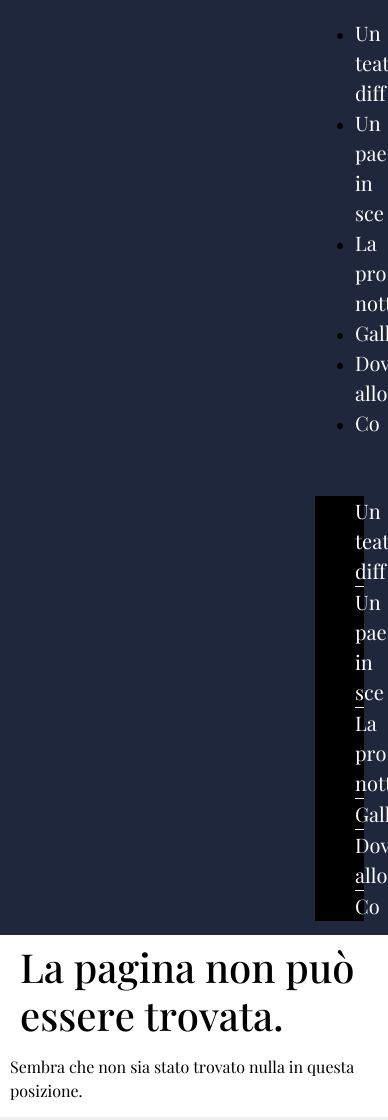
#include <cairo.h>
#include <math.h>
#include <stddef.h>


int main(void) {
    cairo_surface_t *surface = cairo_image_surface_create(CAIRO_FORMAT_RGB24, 388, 1120);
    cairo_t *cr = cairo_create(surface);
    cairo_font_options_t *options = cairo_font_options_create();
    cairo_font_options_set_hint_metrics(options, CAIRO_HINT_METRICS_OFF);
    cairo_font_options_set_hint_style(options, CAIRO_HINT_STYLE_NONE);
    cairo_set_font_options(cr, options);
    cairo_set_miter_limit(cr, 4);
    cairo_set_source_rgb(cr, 1, 1, 1);
    cairo_paint(cr);
    cairo_set_source_rgb(cr, 0.122, 0.153, 0.235);
    cairo_rectangle(cr, 0, 0, 388, 935);
    cairo_fill(cr);
    cairo_set_source_rgb(cr, 0, 0, 0);
    cairo_arc(cr, 340, 36, 3, 0, 2 * M_PI);
    cairo_fill(cr);
    cairo_select_font_face(cr, "Playfair Display", CAIRO_FONT_SLANT_NORMAL, CAIRO_FONT_WEIGHT_NORMAL);
    cairo_set_font_size(cr, 20);
    cairo_set_source_rgb(cr, 1, 1, 1);
    cairo_move_to(cr, 355, 41);
    cairo_show_text(cr, "Un");
    cairo_move_to(cr, 355, 71);
    cairo_show_text(cr, "teat");
    cairo_move_to(cr, 355, 101);
    cairo_show_text(cr, "diff");
    cairo_set_source_rgb(cr, 0, 0, 0);
    cairo_new_path(cr);
    cairo_arc(cr, 340, 126, 3, 0, 2 * M_PI);
    cairo_fill(cr);
    cairo_set_source_rgb(cr, 1, 1, 1);
    cairo_move_to(cr, 355, 131);
    cairo_show_text(cr, "Un");
    cairo_move_to(cr, 355, 161);
    cairo_show_text(cr, "pae");
    cairo_move_to(cr, 355, 191);
    cairo_show_text(cr, "in");
    cairo_move_to(cr, 355, 221);
    cairo_show_text(cr, "sce");
    cairo_set_source_rgb(cr, 0, 0, 0);
    cairo_new_path(cr);
    cairo_arc(cr, 340, 246, 3, 0, 2 * M_PI);
    cairo_fill(cr);
    cairo_set_source_rgb(cr, 1, 1, 1);
    cairo_move_to(cr, 355, 251);
    cairo_show_text(cr, "La");
    cairo_move_to(cr, 355, 281);
    cairo_show_text(cr, "pro");
    cairo_move_to(cr, 355, 311);
    cairo_show_text(cr, "nott");
    cairo_set_source_rgb(cr, 0, 0, 0);
    cairo_new_path(cr);
    cairo_arc(cr, 340, 336, 3, 0, 2 * M_PI);
    cairo_fill(cr);
    cairo_set_source_rgb(cr, 1, 1, 1);
    cairo_move_to(cr, 355, 341);
    cairo_show_text(cr, "Gall");
    cairo_set_source_rgb(cr, 0, 0, 0);
    cairo_new_path(cr);
    cairo_arc(cr, 340, 366, 3, 0, 2 * M_PI);
    cairo_fill(cr);
    cairo_set_source_rgb(cr, 1, 1, 1);
    cairo_move_to(cr, 355, 371);
    cairo_show_text(cr, "Dov");
    cairo_move_to(cr, 355, 401);
    cairo_show_text(cr, "allo");
    cairo_set_source_rgb(cr, 0, 0, 0);
    cairo_new_path(cr);
    cairo_arc(cr, 340, 426, 3, 0, 2 * M_PI);
    cairo_fill(cr);
    cairo_set_source_rgb(cr, 1, 1, 1);
    cairo_move_to(cr, 355, 431);
    cairo_show_text(cr, "Co");
    cairo_set_source_rgb(cr, 0, 0, 0);
    cairo_rectangle(cr, 315, 496, 49, 425);
    cairo_fill(cr);
    cairo_set_source_rgb(cr, 1, 1, 1);
    cairo_rectangle(cr, 355, 586, 9, 1);
    cairo_fill(cr);
    cairo_move_to(cr, 355, 519);
    cairo_show_text(cr, "Un");
    cairo_move_to(cr, 355, 549);
    cairo_show_text(cr, "teat");
    cairo_move_to(cr, 355, 579);
    cairo_show_text(cr, "diff");
    cairo_rectangle(cr, 355, 707, 9, 1);
    cairo_fill(cr);
    cairo_move_to(cr, 355, 610);
    cairo_show_text(cr, "Un");
    cairo_move_to(cr, 355, 640);
    cairo_show_text(cr, "pae");
    cairo_move_to(cr, 355, 670);
    cairo_show_text(cr, "in");
    cairo_move_to(cr, 355, 700);
    cairo_show_text(cr, "sce");
    cairo_rectangle(cr, 355, 798, 9, 1);
    cairo_fill(cr);
    cairo_move_to(cr, 355, 731);
    cairo_show_text(cr, "La");
    cairo_move_to(cr, 355, 761);
    cairo_show_text(cr, "pro");
    cairo_move_to(cr, 355, 791);
    cairo_show_text(cr, "nott");
    cairo_rectangle(cr, 355, 829, 9, 1);
    cairo_fill(cr);
    cairo_move_to(cr, 355, 822);
    cairo_show_text(cr, "Gall");
    cairo_rectangle(cr, 355, 890, 9, 1);
    cairo_fill(cr);
    cairo_move_to(cr, 355, 853);
    cairo_show_text(cr, "Dov");
    cairo_move_to(cr, 355, 883);
    cairo_show_text(cr, "allo");
    cairo_move_to(cr, 355, 914);
    cairo_show_text(cr, "Co");
    cairo_select_font_face(cr, "Playfair Display Medium", CAIRO_FONT_SLANT_NORMAL, CAIRO_FONT_WEIGHT_NORMAL);
    cairo_set_font_size(cr, 40);
    cairo_set_source_rgb(cr, 0, 0, 0);
    cairo_move_to(cr, 20, 983);
    cairo_show_text(cr, "La pagina non può");
    cairo_move_to(cr, 20, 1031);
    cairo_show_text(cr, "essere trovata.");
    cairo_select_font_face(cr, "Playfair Display", CAIRO_FONT_SLANT_NORMAL, CAIRO_FONT_WEIGHT_NORMAL);
    cairo_set_font_size(cr, 16);
    cairo_move_to(cr, 10, 1073);
    cairo_show_text(cr, "Sembra che non sia stato trovato nulla in questa");
    cairo_move_to(cr, 10, 1097);
    cairo_show_text(cr, "posizione.");
    cairo_set_source_rgb(cr, 0.941, 0.941, 0.941);
    cairo_rectangle(cr, 0, 1117, 388, 3);
    cairo_fill(cr);
    cairo_surface_write_to_png(surface, "page.png");
    cairo_font_options_destroy(options);
    cairo_destroy(cr);
    cairo_surface_destroy(surface);
    return 0;
}
